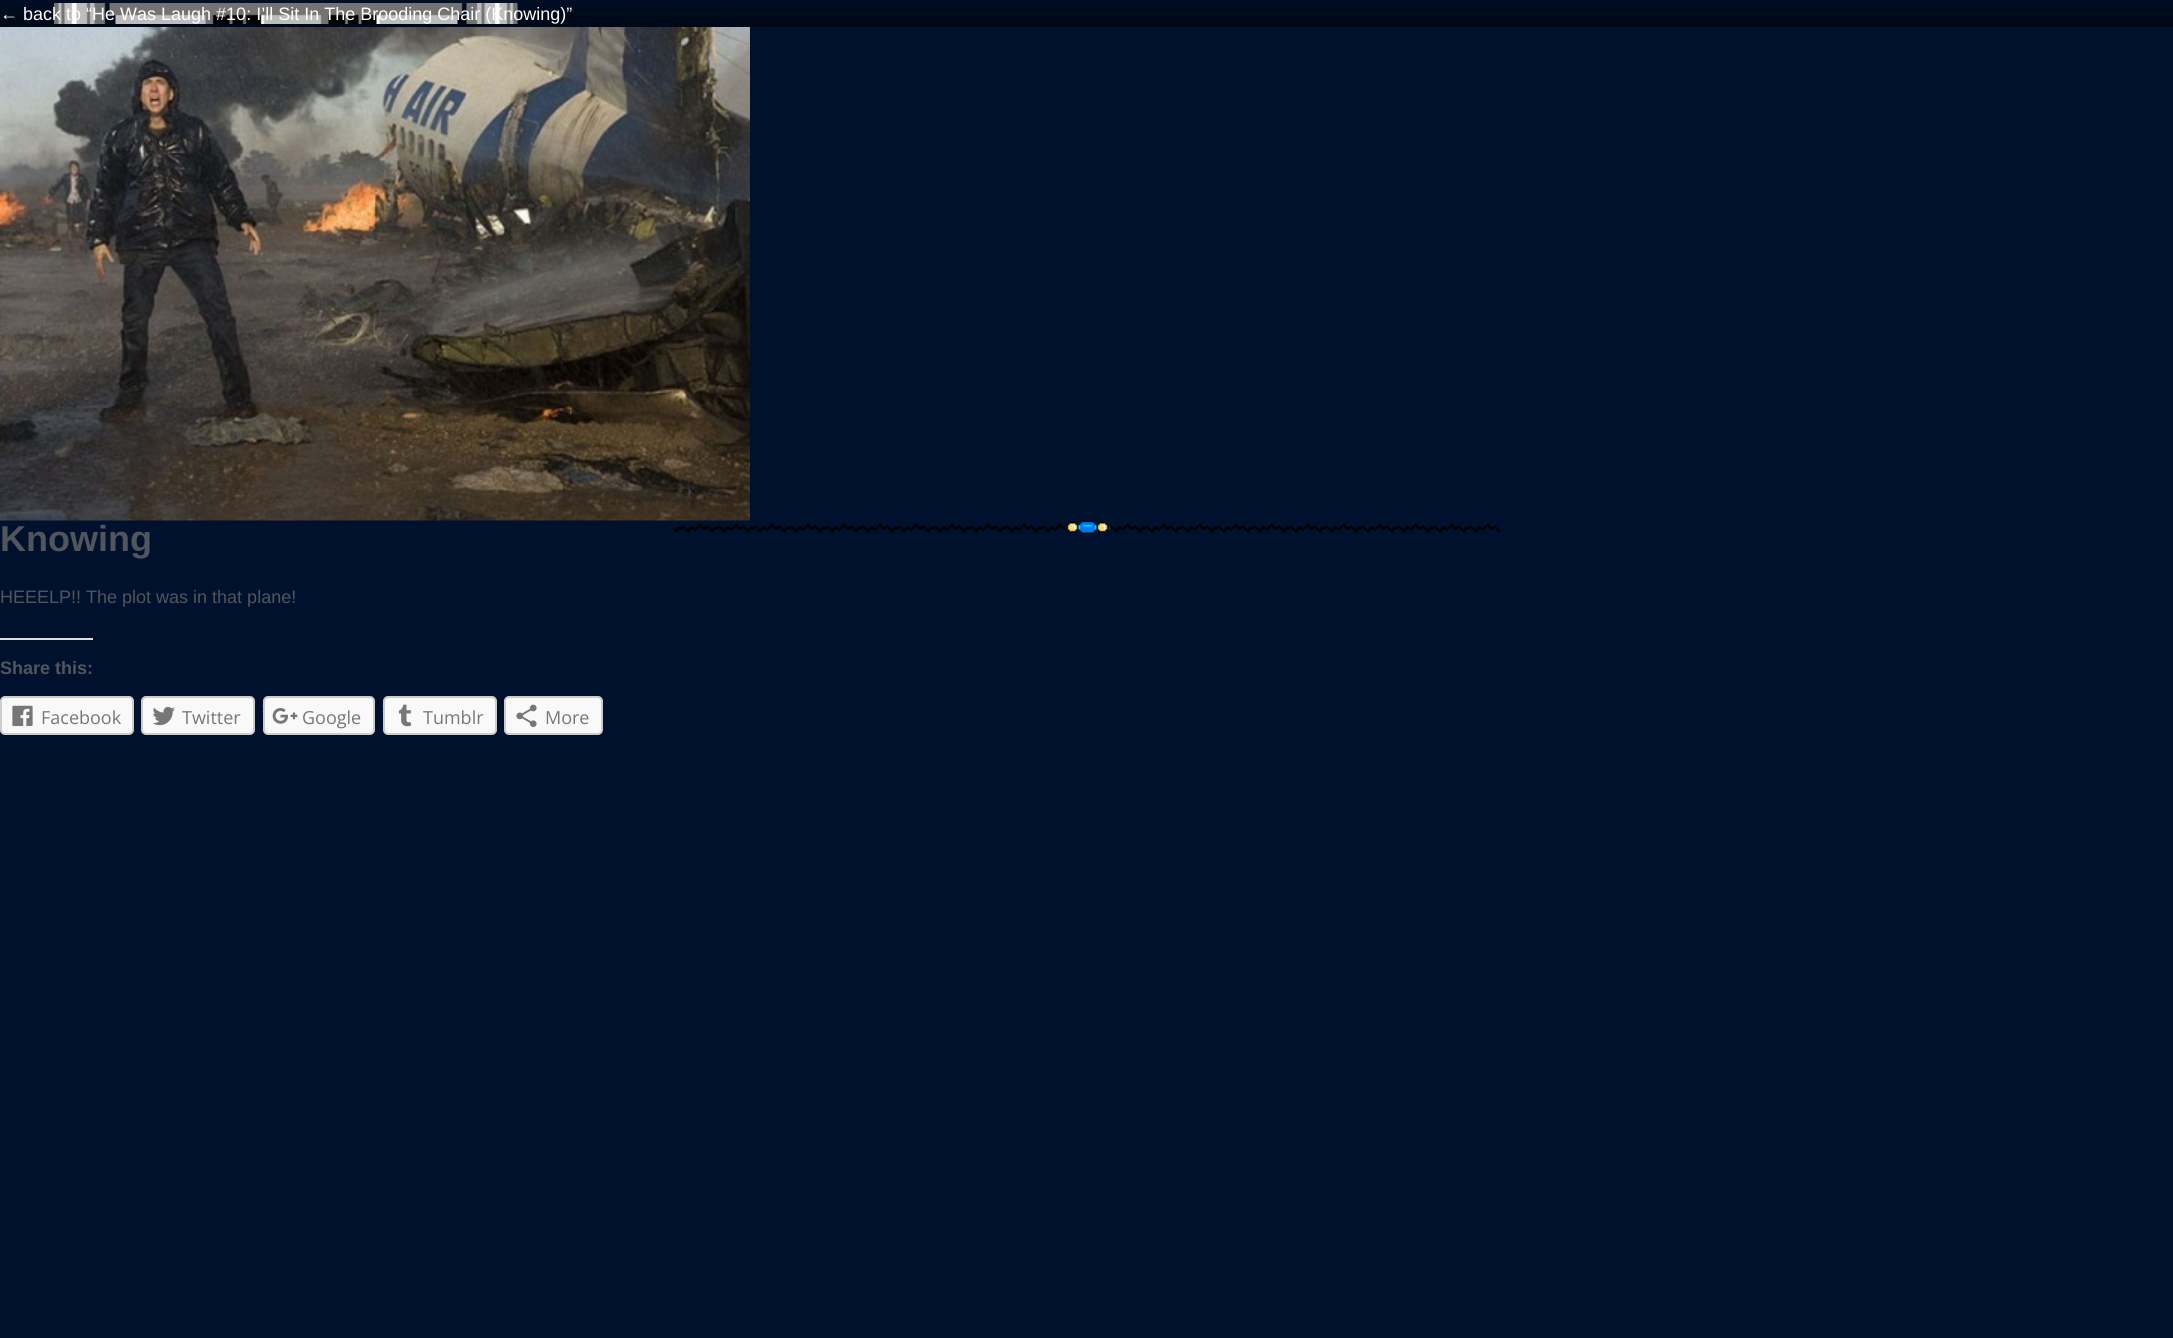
#include <cairo.h>
#include <math.h>
#include <stddef.h>


static void round_rect(cairo_t *cr, double x, double y, double w, double h, double r) {
    cairo_new_sub_path(cr);
    cairo_arc(cr, x + w - r, y + h - r, r, 0, M_PI / 2);
    cairo_arc(cr, x + r, y + h - r, r, M_PI / 2, M_PI);
    cairo_arc(cr, x + r, y + r, r, M_PI, 1.5 * M_PI);
    cairo_arc(cr, x + w - r, y + r, r, 1.5 * M_PI, 2 * M_PI);
    cairo_close_path(cr);
}

static void picture(cairo_t *cr, const char *path, double x, double y, double w, double h) {
    cairo_surface_t *image = cairo_image_surface_create_from_png(path);
    cairo_save(cr);
    cairo_set_source_surface(cr, image, x, y);
    cairo_rectangle(cr, x, y, w, h);
    cairo_fill(cr);
    cairo_restore(cr);
    cairo_surface_destroy(image);
}

int main(void) {
    cairo_surface_t *surface = cairo_image_surface_create(CAIRO_FORMAT_RGB24, 2173, 1338);
    cairo_t *cr = cairo_create(surface);
    cairo_font_options_t *options = cairo_font_options_create();
    cairo_font_options_set_hint_metrics(options, CAIRO_HINT_METRICS_OFF);
    cairo_font_options_set_hint_style(options, CAIRO_HINT_STYLE_NONE);
    cairo_set_font_options(cr, options);
    cairo_set_miter_limit(cr, 4);
    cairo_set_source_rgb(cr, 0, 0.067, 0.18);
    cairo_paint(cr);
    picture(cr, "img1.png", 0, 0, 2173, 27);
    picture(cr, "img2.png", 54, 3, 464, 21);
    cairo_select_font_face(cr, "Liberation Sans", CAIRO_FONT_SLANT_NORMAL, CAIRO_FONT_WEIGHT_NORMAL);
    cairo_set_font_size(cr, 18);
    cairo_set_source_rgb(cr, 1, 1, 1);
    cairo_move_to(cr, 0, 20);
    cairo_show_text(cr, "← back to “He Was Laugh #10: I’ll Sit In The Brooding Chair (Knowing)”");
    picture(cr, "img4.png", 673, 520, 827, 14);
    picture(cr, "img3.png", 0, 27, 750, 494);
    cairo_select_font_face(cr, "Liberation Sans", CAIRO_FONT_SLANT_NORMAL, CAIRO_FONT_WEIGHT_BOLD);
    cairo_set_font_size(cr, 36);
    cairo_set_source_rgb(cr, 0.318, 0.333, 0.361);
    cairo_move_to(cr, 0, 551);
    cairo_show_text(cr, "Knowing");
    cairo_select_font_face(cr, "Liberation Sans", CAIRO_FONT_SLANT_NORMAL, CAIRO_FONT_WEIGHT_NORMAL);
    cairo_set_font_size(cr, 18);
    cairo_move_to(cr, 0, 603);
    cairo_show_text(cr, "HEEELP!! The plot was in that plane!");
    cairo_set_source_rgb(cr, 0.867, 0.867, 0.867);
    cairo_rectangle(cr, 0, 638, 93, 2);
    cairo_fill(cr);
    cairo_select_font_face(cr, "Liberation Sans", CAIRO_FONT_SLANT_NORMAL, CAIRO_FONT_WEIGHT_BOLD);
    cairo_set_source_rgb(cr, 0.318, 0.333, 0.361);
    cairo_move_to(cr, 0, 674);
    cairo_show_text(cr, "Share this:");
    cairo_set_source_rgb(cr, 0, 0.063, 0.165);
    cairo_new_path(cr);
    cairo_move_to(cr, 0, 730);
    cairo_line_to(cr, 0, 732);
    cairo_curve_to(cr, 0, 735, 2, 737, 5, 737);
    cairo_line_to(cr, 129, 737);
    cairo_curve_to(cr, 132, 737, 134, 735, 134, 732);
    cairo_line_to(cr, 134, 703);
    cairo_line_to(cr, 134, 701);
    cairo_line_to(cr, 134, 730);
    cairo_curve_to(cr, 134, 733, 131, 735, 129, 735);
    cairo_line_to(cr, 4, 735);
    cairo_curve_to(cr, 2, 735, 0, 733, 0, 730);
    cairo_close_path(cr);
    cairo_fill(cr);
    cairo_set_source_rgb(cr, 0.973, 0.973, 0.973);
    round_rect(cr, 1, 697, 132, 37, 4);
    cairo_fill_preserve(cr);
    cairo_set_source_rgb(cr, 0.8, 0.8, 0.8);
    cairo_stroke(cr);
    picture(cr, "img5.png", 12, 705, 21, 21);
    cairo_select_font_face(cr, "Open Sans", CAIRO_FONT_SLANT_NORMAL, CAIRO_FONT_WEIGHT_NORMAL);
    cairo_set_source_rgb(cr, 0.467, 0.467, 0.467);
    cairo_move_to(cr, 41, 724);
    cairo_show_text(cr, "Facebook");
    cairo_set_source_rgb(cr, 0, 0.063, 0.165);
    cairo_new_path(cr);
    cairo_move_to(cr, 141, 730);
    cairo_line_to(cr, 141, 732);
    cairo_curve_to(cr, 141, 735, 143, 737, 146, 737);
    cairo_line_to(cr, 250, 737);
    cairo_curve_to(cr, 253, 737, 255, 735, 255, 732);
    cairo_line_to(cr, 255, 730);
    cairo_curve_to(cr, 255, 733, 253, 735, 250, 735);
    cairo_line_to(cr, 146, 735);
    cairo_curve_to(cr, 143, 735, 141, 733, 141, 730);
    cairo_close_path(cr);
    cairo_fill(cr);
    cairo_set_source_rgb(cr, 0.973, 0.973, 0.973);
    round_rect(cr, 142, 697, 112, 37, 4);
    cairo_fill_preserve(cr);
    cairo_set_source_rgb(cr, 0.8, 0.8, 0.8);
    cairo_stroke(cr);
    picture(cr, "img6.png", 152, 706, 23, 20);
    cairo_set_source_rgb(cr, 0.467, 0.467, 0.467);
    cairo_move_to(cr, 182, 724);
    cairo_show_text(cr, "Twitter");
    picture(cr, "img7.png", 262, 704, 1, 9);
    cairo_set_source_rgb(cr, 0, 0.063, 0.165);
    cairo_new_path(cr);
    cairo_move_to(cr, 263, 733);
    cairo_curve_to(cr, 263, 735, 265, 737, 268, 737);
    cairo_line_to(cr, 370, 737);
    cairo_curve_to(cr, 373, 737, 375, 735, 375, 732);
    cairo_line_to(cr, 375, 730);
    cairo_curve_to(cr, 375, 733, 373, 735, 370, 735);
    cairo_line_to(cr, 267, 735);
    cairo_curve_to(cr, 265, 735, 264, 734, 263, 733);
    cairo_close_path(cr);
    cairo_fill(cr);
    cairo_set_source_rgb(cr, 0.973, 0.973, 0.973);
    round_rect(cr, 264, 697, 110, 37, 4);
    cairo_fill_preserve(cr);
    cairo_set_source_rgb(cr, 0.8, 0.8, 0.8);
    cairo_stroke(cr);
    picture(cr, "img8.png", 272, 708, 26, 16);
    cairo_set_source_rgb(cr, 0.467, 0.467, 0.467);
    cairo_move_to(cr, 302, 724);
    cairo_show_text(cr, "Google");
    picture(cr, "img7.png", 382, 704, 1, 9);
    cairo_set_source_rgb(cr, 0, 0.063, 0.165);
    cairo_new_path(cr);
    cairo_move_to(cr, 383, 733);
    cairo_curve_to(cr, 383, 735, 385, 737, 388, 737);
    cairo_line_to(cr, 492, 737);
    cairo_curve_to(cr, 495, 737, 497, 735, 497, 732);
    cairo_line_to(cr, 497, 703);
    cairo_line_to(cr, 496, 701);
    cairo_line_to(cr, 496, 730);
    cairo_curve_to(cr, 496, 733, 494, 735, 492, 735);
    cairo_line_to(cr, 387, 735);
    cairo_curve_to(cr, 385, 735, 384, 734, 383, 733);
    cairo_close_path(cr);
    cairo_fill(cr);
    cairo_set_source_rgb(cr, 0.973, 0.973, 0.973);
    round_rect(cr, 384, 697, 112, 37, 4);
    cairo_fill_preserve(cr);
    cairo_set_source_rgb(cr, 0.8, 0.8, 0.8);
    cairo_stroke(cr);
    picture(cr, "img9.png", 398, 704, 14, 23);
    cairo_set_source_rgb(cr, 0.467, 0.467, 0.467);
    cairo_move_to(cr, 423, 724);
    cairo_show_text(cr, "Tumblr");
    cairo_set_source_rgb(cr, 0, 0.063, 0.165);
    cairo_new_path(cr);
    cairo_move_to(cr, 504, 730);
    cairo_curve_to(cr, 504, 741, 517, 737, 524, 737);
    cairo_line_to(cr, 583, 737);
    cairo_curve_to(cr, 590, 737, 603, 741, 603, 730);
    cairo_curve_to(cr, 603, 733, 601, 735, 598, 735);
    cairo_line_to(cr, 508, 735);
    cairo_curve_to(cr, 506, 735, 504, 733, 504, 730);
    cairo_close_path(cr);
    cairo_fill(cr);
    cairo_set_source_rgb(cr, 0.973, 0.973, 0.973);
    round_rect(cr, 505, 697, 97, 37, 4);
    cairo_fill_preserve(cr);
    cairo_set_source_rgb(cr, 0.8, 0.8, 0.8);
    cairo_stroke(cr);
    picture(cr, "img10.png", 516, 704, 21, 24);
    cairo_set_source_rgb(cr, 0.467, 0.467, 0.467);
    cairo_move_to(cr, 545, 724);
    cairo_show_text(cr, "More");
    cairo_surface_write_to_png(surface, "page.png");
    cairo_font_options_destroy(options);
    cairo_destroy(cr);
    cairo_surface_destroy(surface);
    return 0;
}
